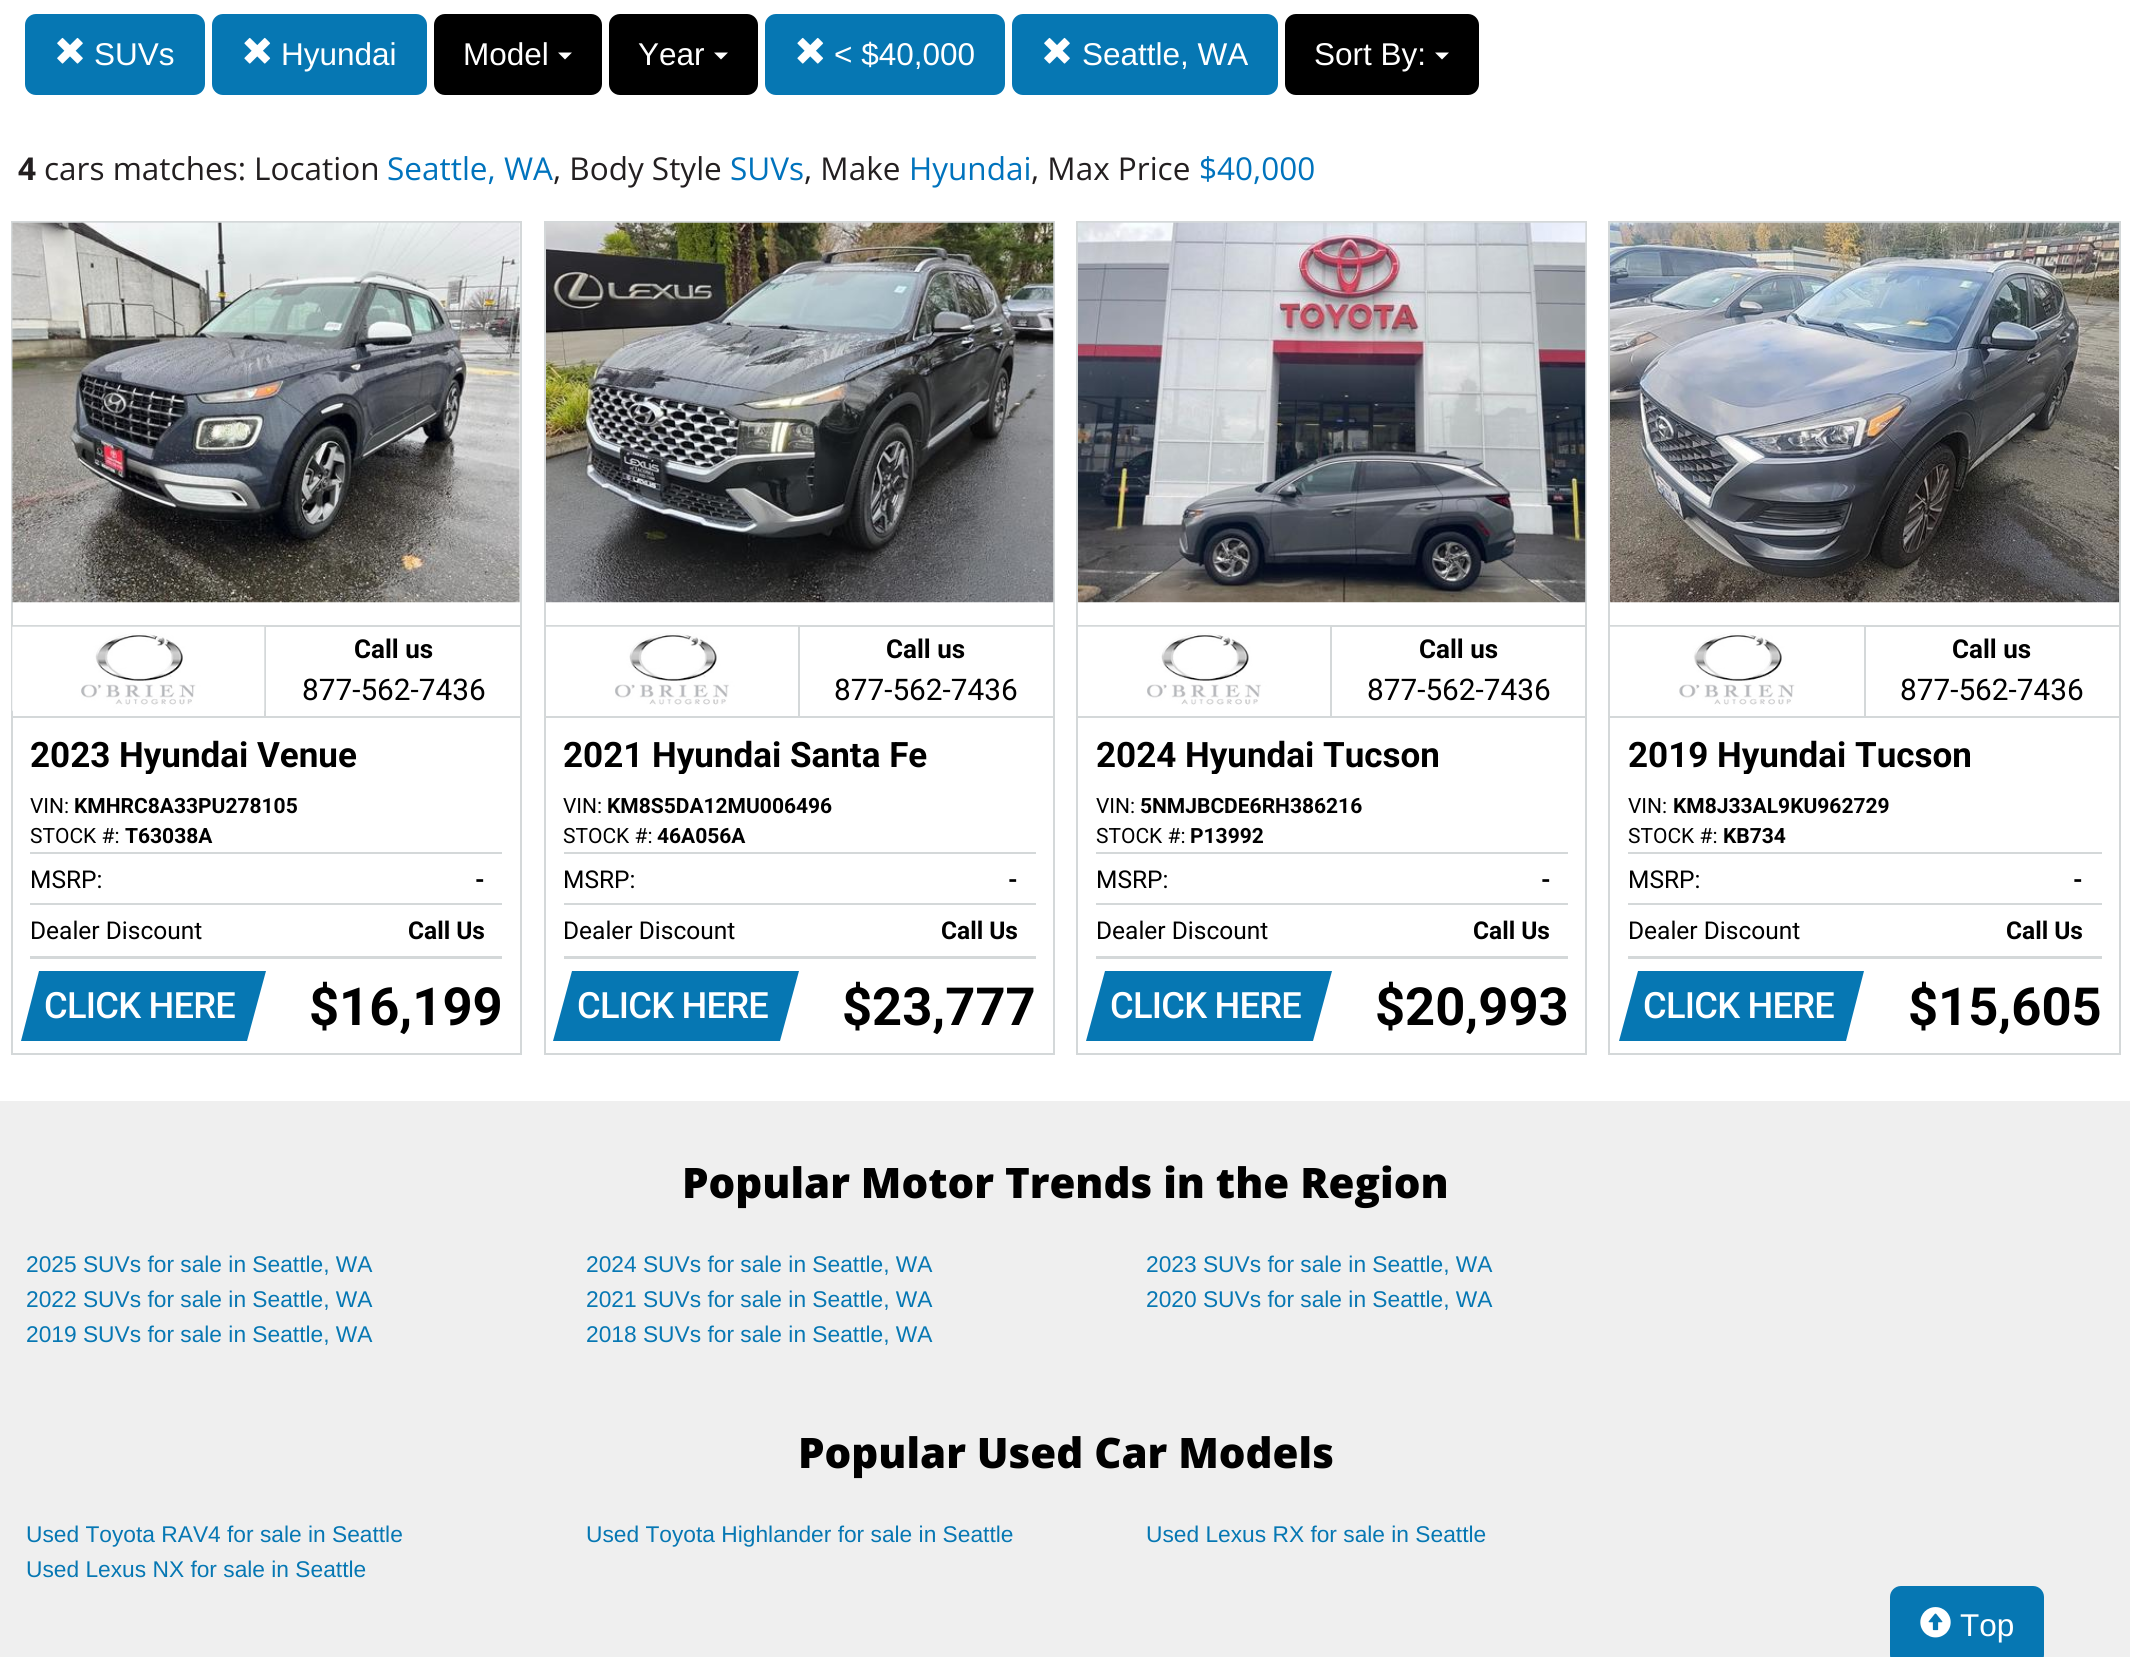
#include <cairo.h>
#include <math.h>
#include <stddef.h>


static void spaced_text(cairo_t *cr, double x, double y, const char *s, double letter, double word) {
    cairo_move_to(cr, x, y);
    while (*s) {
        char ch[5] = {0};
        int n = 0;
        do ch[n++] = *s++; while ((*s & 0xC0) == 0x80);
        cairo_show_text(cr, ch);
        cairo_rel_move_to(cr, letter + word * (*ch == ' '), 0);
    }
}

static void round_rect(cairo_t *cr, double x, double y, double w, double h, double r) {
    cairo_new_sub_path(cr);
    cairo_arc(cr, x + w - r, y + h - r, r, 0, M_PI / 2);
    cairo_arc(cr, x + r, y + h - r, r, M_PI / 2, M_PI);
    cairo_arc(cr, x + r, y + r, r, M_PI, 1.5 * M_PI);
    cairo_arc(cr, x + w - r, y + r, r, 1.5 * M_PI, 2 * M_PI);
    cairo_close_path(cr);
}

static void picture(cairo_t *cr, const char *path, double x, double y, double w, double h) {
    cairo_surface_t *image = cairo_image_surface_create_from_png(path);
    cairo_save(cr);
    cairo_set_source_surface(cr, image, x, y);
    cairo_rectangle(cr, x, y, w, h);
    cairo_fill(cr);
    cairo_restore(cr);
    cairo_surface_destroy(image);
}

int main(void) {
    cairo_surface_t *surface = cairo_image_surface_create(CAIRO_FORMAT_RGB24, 2130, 1657);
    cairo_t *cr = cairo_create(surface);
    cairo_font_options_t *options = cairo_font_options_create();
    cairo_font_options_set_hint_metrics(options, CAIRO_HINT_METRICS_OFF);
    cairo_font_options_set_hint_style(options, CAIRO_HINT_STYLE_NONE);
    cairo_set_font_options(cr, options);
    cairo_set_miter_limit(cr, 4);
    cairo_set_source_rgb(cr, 1, 1, 1);
    cairo_paint(cr);
    cairo_set_source_rgb(cr, 0.027, 0.467, 0.702);
    round_rect(cr, 25, 14, 180, 81, 11);
    cairo_fill(cr);
    picture(cr, "img1.png", 57, 37, 26, 27);
    cairo_select_font_face(cr, "Liberation Sans", CAIRO_FONT_SLANT_NORMAL, CAIRO_FONT_WEIGHT_NORMAL);
    cairo_set_font_size(cr, 31.5);
    cairo_set_source_rgb(cr, 1, 1, 1);
    cairo_move_to(cr, 94, 65);
    cairo_show_text(cr, "SUVs");
    cairo_set_source_rgb(cr, 0.027, 0.467, 0.702);
    round_rect(cr, 212, 14, 215, 81, 11);
    cairo_fill(cr);
    picture(cr, "img2.png", 244, 37, 27, 27);
    cairo_set_source_rgb(cr, 1, 1, 1);
    cairo_move_to(cr, 281, 65);
    cairo_show_text(cr, "Hyundai");
    cairo_set_source_rgb(cr, 0, 0, 0);
    round_rect(cr, 434, 14, 168, 81, 11);
    cairo_fill(cr);
    cairo_set_source_rgb(cr, 1, 1, 1);
    cairo_move_to(cr, 463, 65);
    cairo_show_text(cr, "Model");
    cairo_new_path(cr);
    cairo_move_to(cr, 558, 52.5);
    cairo_line_to(cr, 572, 52.5);
    cairo_line_to(cr, 565, 59.5);
    cairo_close_path(cr);
    cairo_fill(cr);
    cairo_set_source_rgb(cr, 0, 0, 0);
    round_rect(cr, 609, 14, 149, 81, 11);
    cairo_fill(cr);
    cairo_set_source_rgb(cr, 1, 1, 1);
    cairo_move_to(cr, 638, 65);
    cairo_show_text(cr, "Year");
    cairo_new_path(cr);
    cairo_move_to(cr, 714, 52.5);
    cairo_line_to(cr, 728, 52.5);
    cairo_line_to(cr, 721, 59.5);
    cairo_close_path(cr);
    cairo_fill(cr);
    cairo_set_source_rgb(cr, 0.027, 0.467, 0.702);
    round_rect(cr, 765, 14, 240, 81, 11);
    cairo_fill(cr);
    picture(cr, "img2.png", 797, 37, 27, 27);
    cairo_set_source_rgb(cr, 1, 1, 1);
    cairo_move_to(cr, 834, 65);
    cairo_show_text(cr, "< $40,000");
    cairo_set_source_rgb(cr, 0.027, 0.467, 0.702);
    round_rect(cr, 1012, 14, 266, 81, 11);
    cairo_fill(cr);
    picture(cr, "img1.png", 1044, 37, 26, 27);
    cairo_set_source_rgb(cr, 1, 1, 1);
    cairo_move_to(cr, 1082, 65);
    cairo_show_text(cr, "Seattle, WA");
    cairo_set_source_rgb(cr, 0, 0, 0);
    round_rect(cr, 1285, 14, 194, 81, 11);
    cairo_fill(cr);
    cairo_set_source_rgb(cr, 1, 1, 1);
    cairo_move_to(cr, 1314, 65);
    cairo_show_text(cr, "Sort By:");
    cairo_new_path(cr);
    cairo_move_to(cr, 1435, 52.5);
    cairo_line_to(cr, 1449, 52.5);
    cairo_line_to(cr, 1442, 59.5);
    cairo_close_path(cr);
    cairo_fill(cr);
    cairo_select_font_face(cr, "Open Sans", CAIRO_FONT_SLANT_NORMAL, CAIRO_FONT_WEIGHT_BOLD);
    cairo_set_source_rgb(cr, 0.137, 0.122, 0.125);
    cairo_move_to(cr, 18, 180);
    cairo_show_text(cr, "4");
    cairo_select_font_face(cr, "Open Sans", CAIRO_FONT_SLANT_NORMAL, CAIRO_FONT_WEIGHT_NORMAL);
    cairo_move_to(cr, 44, 180);
    cairo_show_text(cr, "cars matches: Location");
    cairo_set_source_rgb(cr, 0, 0.451, 0.741);
    cairo_move_to(cr, 387, 180);
    cairo_show_text(cr, "Seattle, WA");
    cairo_set_source_rgb(cr, 0.137, 0.122, 0.125);
    cairo_move_to(cr, 553, 180);
    cairo_show_text(cr, ", Body Style");
    cairo_set_source_rgb(cr, 0, 0.451, 0.741);
    cairo_move_to(cr, 730, 180);
    cairo_show_text(cr, "SUVs");
    cairo_set_source_rgb(cr, 0.137, 0.122, 0.125);
    cairo_move_to(cr, 804, 180);
    cairo_show_text(cr, ", Make");
    cairo_set_source_rgb(cr, 0, 0.451, 0.741);
    cairo_move_to(cr, 909, 180);
    cairo_show_text(cr, "Hyundai");
    cairo_set_source_rgb(cr, 0.137, 0.122, 0.125);
    cairo_move_to(cr, 1031, 180);
    cairo_show_text(cr, ", Max Price");
    cairo_set_source_rgb(cr, 0, 0.451, 0.741);
    cairo_move_to(cr, 1199, 180);
    cairo_show_text(cr, "$40,000");
    cairo_rectangle(cr, 12, 222, 509, 832);
    cairo_set_source_rgb(cr, 0.831, 0.847, 0.851);
    cairo_stroke(cr);
    picture(cr, "img3.png", 12, 222, 508, 381);
    cairo_rectangle(cr, 12, 625, 508, 2);
    cairo_fill(cr);
    cairo_rectangle(cr, 264, 625, 2, 93);
    cairo_fill(cr);
    cairo_rectangle(cr, 12, 716, 508, 2);
    cairo_fill(cr);
    picture(cr, "img4.png", 12, 626, 253, 85);
    cairo_select_font_face(cr, "Roboto", CAIRO_FONT_SLANT_NORMAL, CAIRO_FONT_WEIGHT_BOLD);
    cairo_set_font_size(cr, 26);
    cairo_set_source_rgb(cr, 0, 0, 0);
    cairo_move_to(cr, 354, 658);
    cairo_show_text(cr, "Call us");
    cairo_select_font_face(cr, "Roboto", CAIRO_FONT_SLANT_NORMAL, CAIRO_FONT_WEIGHT_NORMAL);
    cairo_set_font_size(cr, 29.75);
    cairo_move_to(cr, 302, 700);
    cairo_show_text(cr, "877-562-7436");
    cairo_save(cr);
    cairo_rectangle(cr, 30, 735, 327, 39);
    cairo_clip(cr);
    cairo_select_font_face(cr, "Roboto", CAIRO_FONT_SLANT_NORMAL, CAIRO_FONT_WEIGHT_BOLD);
    cairo_set_font_size(cr, 35);
    cairo_move_to(cr, 30, 767);
    cairo_show_text(cr, "2023 Hyundai Venue");
    cairo_restore(cr);
    cairo_set_font_size(cr, 21);
    cairo_move_to(cr, 30, 813);
    cairo_show_text(cr, "VIN:");
    cairo_select_font_face(cr, "Roboto", CAIRO_FONT_SLANT_NORMAL, CAIRO_FONT_WEIGHT_BOLD);
    cairo_move_to(cr, 74, 813);
    cairo_show_text(cr, "KMHRC8A33PU278105");
    cairo_select_font_face(cr, "Roboto", CAIRO_FONT_SLANT_NORMAL, CAIRO_FONT_WEIGHT_NORMAL);
    cairo_move_to(cr, 30, 843);
    cairo_show_text(cr, "STOCK #:");
    cairo_select_font_face(cr, "Roboto", CAIRO_FONT_SLANT_NORMAL, CAIRO_FONT_WEIGHT_BOLD);
    cairo_move_to(cr, 125, 843);
    cairo_show_text(cr, "T63038A");
    cairo_set_source_rgb(cr, 0.831, 0.847, 0.851);
    cairo_rectangle(cr, 30, 852, 472, 2);
    cairo_fill(cr);
    cairo_rectangle(cr, 30, 903, 472, 2);
    cairo_fill(cr);
    cairo_select_font_face(cr, "Roboto", CAIRO_FONT_SLANT_NORMAL, CAIRO_FONT_WEIGHT_NORMAL);
    cairo_set_font_size(cr, 24.5);
    cairo_set_source_rgb(cr, 0, 0, 0);
    cairo_move_to(cr, 30, 888);
    cairo_show_text(cr, "MSRP:");
    cairo_select_font_face(cr, "Roboto", CAIRO_FONT_SLANT_NORMAL, CAIRO_FONT_WEIGHT_BOLD);
    cairo_move_to(cr, 475, 888);
    cairo_show_text(cr, "-");
    cairo_set_source_rgb(cr, 0.831, 0.847, 0.851);
    cairo_rectangle(cr, 30, 956, 472, 3);
    cairo_fill(cr);
    cairo_select_font_face(cr, "Roboto", CAIRO_FONT_SLANT_NORMAL, CAIRO_FONT_WEIGHT_NORMAL);
    cairo_set_source_rgb(cr, 0, 0, 0);
    cairo_move_to(cr, 30, 939);
    cairo_show_text(cr, "Dealer Discount");
    cairo_select_font_face(cr, "Roboto", CAIRO_FONT_SLANT_NORMAL, CAIRO_FONT_WEIGHT_BOLD);
    cairo_move_to(cr, 408, 939);
    cairo_show_text(cr, "Call Us");
    cairo_set_source_rgb(cr, 0.027, 0.467, 0.702);
    cairo_new_path(cr);
    cairo_move_to(cr, 39, 971);
    cairo_line_to(cr, 266, 971);
    cairo_line_to(cr, 247, 1041);
    cairo_line_to(cr, 21, 1041);
    cairo_close_path(cr);
    cairo_fill(cr);
    cairo_select_font_face(cr, "Roboto Medium", CAIRO_FONT_SLANT_NORMAL, CAIRO_FONT_WEIGHT_NORMAL);
    cairo_set_font_size(cr, 36.25);
    cairo_set_source_rgb(cr, 1, 1, 1);
    spaced_text(cr, 44, 1018, "CLICK HERE", -0.75, 0);
    cairo_select_font_face(cr, "Roboto", CAIRO_FONT_SLANT_NORMAL, CAIRO_FONT_WEIGHT_BOLD);
    cairo_set_font_size(cr, 52.5);
    cairo_set_source_rgb(cr, 0, 0, 0);
    cairo_move_to(cr, 309, 1025);
    cairo_show_text(cr, "$16,199");
    cairo_rectangle(cr, 545, 222, 509, 832);
    cairo_set_source_rgb(cr, 0.831, 0.847, 0.851);
    cairo_stroke(cr);
    picture(cr, "img5.png", 546, 222, 508, 381);
    cairo_rectangle(cr, 546, 625, 508, 2);
    cairo_fill(cr);
    cairo_rectangle(cr, 798, 625, 2, 93);
    cairo_fill(cr);
    cairo_rectangle(cr, 546, 716, 508, 2);
    cairo_fill(cr);
    picture(cr, "img6.png", 546, 626, 252, 79);
    cairo_set_font_size(cr, 26);
    cairo_set_source_rgb(cr, 0, 0, 0);
    cairo_move_to(cr, 886, 658);
    cairo_show_text(cr, "Call us");
    cairo_select_font_face(cr, "Roboto", CAIRO_FONT_SLANT_NORMAL, CAIRO_FONT_WEIGHT_NORMAL);
    cairo_set_font_size(cr, 29.75);
    cairo_move_to(cr, 834, 700);
    cairo_show_text(cr, "877-562-7436");
    cairo_save(cr);
    cairo_rectangle(cr, 564, 735, 364, 39);
    cairo_clip(cr);
    cairo_select_font_face(cr, "Roboto", CAIRO_FONT_SLANT_NORMAL, CAIRO_FONT_WEIGHT_BOLD);
    cairo_set_font_size(cr, 35);
    cairo_move_to(cr, 563, 767);
    cairo_show_text(cr, "2021 Hyundai Santa Fe");
    cairo_restore(cr);
    cairo_set_font_size(cr, 21);
    cairo_move_to(cr, 563, 813);
    cairo_show_text(cr, "VIN:");
    cairo_select_font_face(cr, "Roboto", CAIRO_FONT_SLANT_NORMAL, CAIRO_FONT_WEIGHT_BOLD);
    cairo_move_to(cr, 607, 813);
    cairo_show_text(cr, "KM8S5DA12MU006496");
    cairo_select_font_face(cr, "Roboto", CAIRO_FONT_SLANT_NORMAL, CAIRO_FONT_WEIGHT_NORMAL);
    cairo_move_to(cr, 563, 843);
    cairo_show_text(cr, "STOCK #:");
    cairo_select_font_face(cr, "Roboto", CAIRO_FONT_SLANT_NORMAL, CAIRO_FONT_WEIGHT_BOLD);
    cairo_move_to(cr, 657, 843);
    cairo_show_text(cr, "46A056A");
    cairo_set_source_rgb(cr, 0.831, 0.847, 0.851);
    cairo_rectangle(cr, 564, 852, 472, 2);
    cairo_fill(cr);
    cairo_rectangle(cr, 564, 903, 472, 2);
    cairo_fill(cr);
    cairo_select_font_face(cr, "Roboto", CAIRO_FONT_SLANT_NORMAL, CAIRO_FONT_WEIGHT_NORMAL);
    cairo_set_font_size(cr, 24.5);
    cairo_set_source_rgb(cr, 0, 0, 0);
    cairo_move_to(cr, 563, 888);
    cairo_show_text(cr, "MSRP:");
    cairo_select_font_face(cr, "Roboto", CAIRO_FONT_SLANT_NORMAL, CAIRO_FONT_WEIGHT_BOLD);
    cairo_move_to(cr, 1008, 888);
    cairo_show_text(cr, "-");
    cairo_set_source_rgb(cr, 0.831, 0.847, 0.851);
    cairo_rectangle(cr, 564, 956, 472, 3);
    cairo_fill(cr);
    cairo_select_font_face(cr, "Roboto", CAIRO_FONT_SLANT_NORMAL, CAIRO_FONT_WEIGHT_NORMAL);
    cairo_set_source_rgb(cr, 0, 0, 0);
    cairo_move_to(cr, 563, 939);
    cairo_show_text(cr, "Dealer Discount");
    cairo_select_font_face(cr, "Roboto", CAIRO_FONT_SLANT_NORMAL, CAIRO_FONT_WEIGHT_BOLD);
    cairo_move_to(cr, 941, 939);
    cairo_show_text(cr, "Call Us");
    cairo_set_source_rgb(cr, 0.027, 0.467, 0.702);
    cairo_new_path(cr);
    cairo_move_to(cr, 572, 971);
    cairo_line_to(cr, 799, 971);
    cairo_line_to(cr, 780, 1041);
    cairo_line_to(cr, 553, 1041);
    cairo_close_path(cr);
    cairo_fill(cr);
    cairo_select_font_face(cr, "Roboto Medium", CAIRO_FONT_SLANT_NORMAL, CAIRO_FONT_WEIGHT_NORMAL);
    cairo_set_font_size(cr, 36.25);
    cairo_set_source_rgb(cr, 1, 1, 1);
    spaced_text(cr, 577, 1018, "CLICK HERE", -0.75, 0);
    cairo_select_font_face(cr, "Roboto", CAIRO_FONT_SLANT_NORMAL, CAIRO_FONT_WEIGHT_BOLD);
    cairo_set_font_size(cr, 52.5);
    cairo_set_source_rgb(cr, 0, 0, 0);
    cairo_move_to(cr, 842, 1025);
    cairo_show_text(cr, "$23,777");
    cairo_rectangle(cr, 1077, 222, 509, 832);
    cairo_set_source_rgb(cr, 0.831, 0.847, 0.851);
    cairo_stroke(cr);
    picture(cr, "img7.png", 1078, 222, 508, 381);
    cairo_rectangle(cr, 1078, 625, 508, 2);
    cairo_fill(cr);
    cairo_rectangle(cr, 1330, 625, 2, 93);
    cairo_fill(cr);
    cairo_rectangle(cr, 1078, 716, 508, 2);
    cairo_fill(cr);
    picture(cr, "img6.png", 1078, 626, 252, 79);
    cairo_set_font_size(cr, 26);
    cairo_set_source_rgb(cr, 0, 0, 0);
    cairo_move_to(cr, 1419, 658);
    cairo_show_text(cr, "Call us");
    cairo_select_font_face(cr, "Roboto", CAIRO_FONT_SLANT_NORMAL, CAIRO_FONT_WEIGHT_NORMAL);
    cairo_set_font_size(cr, 29.75);
    cairo_move_to(cr, 1367, 700);
    cairo_show_text(cr, "877-562-7436");
    cairo_save(cr);
    cairo_rectangle(cr, 1096, 735, 344, 39);
    cairo_clip(cr);
    cairo_select_font_face(cr, "Roboto", CAIRO_FONT_SLANT_NORMAL, CAIRO_FONT_WEIGHT_BOLD);
    cairo_set_font_size(cr, 35);
    cairo_move_to(cr, 1096, 767);
    cairo_show_text(cr, "2024 Hyundai Tucson");
    cairo_restore(cr);
    cairo_set_font_size(cr, 21);
    cairo_move_to(cr, 1096, 813);
    cairo_show_text(cr, "VIN:");
    cairo_select_font_face(cr, "Roboto", CAIRO_FONT_SLANT_NORMAL, CAIRO_FONT_WEIGHT_BOLD);
    cairo_move_to(cr, 1140, 813);
    cairo_show_text(cr, "5NMJBCDE6RH386216");
    cairo_select_font_face(cr, "Roboto", CAIRO_FONT_SLANT_NORMAL, CAIRO_FONT_WEIGHT_NORMAL);
    cairo_move_to(cr, 1096, 843);
    cairo_show_text(cr, "STOCK #:");
    cairo_select_font_face(cr, "Roboto", CAIRO_FONT_SLANT_NORMAL, CAIRO_FONT_WEIGHT_BOLD);
    cairo_move_to(cr, 1190, 843);
    cairo_show_text(cr, "P13992");
    cairo_set_source_rgb(cr, 0.831, 0.847, 0.851);
    cairo_rectangle(cr, 1096, 852, 472, 2);
    cairo_fill(cr);
    cairo_rectangle(cr, 1096, 903, 472, 2);
    cairo_fill(cr);
    cairo_select_font_face(cr, "Roboto", CAIRO_FONT_SLANT_NORMAL, CAIRO_FONT_WEIGHT_NORMAL);
    cairo_set_font_size(cr, 24.5);
    cairo_set_source_rgb(cr, 0, 0, 0);
    cairo_move_to(cr, 1096, 888);
    cairo_show_text(cr, "MSRP:");
    cairo_select_font_face(cr, "Roboto", CAIRO_FONT_SLANT_NORMAL, CAIRO_FONT_WEIGHT_BOLD);
    cairo_move_to(cr, 1541, 888);
    cairo_show_text(cr, "-");
    cairo_set_source_rgb(cr, 0.831, 0.847, 0.851);
    cairo_rectangle(cr, 1096, 956, 472, 3);
    cairo_fill(cr);
    cairo_select_font_face(cr, "Roboto", CAIRO_FONT_SLANT_NORMAL, CAIRO_FONT_WEIGHT_NORMAL);
    cairo_set_source_rgb(cr, 0, 0, 0);
    cairo_move_to(cr, 1096, 939);
    cairo_show_text(cr, "Dealer Discount");
    cairo_select_font_face(cr, "Roboto", CAIRO_FONT_SLANT_NORMAL, CAIRO_FONT_WEIGHT_BOLD);
    cairo_move_to(cr, 1473, 939);
    cairo_show_text(cr, "Call Us");
    cairo_set_source_rgb(cr, 0.027, 0.467, 0.702);
    cairo_new_path(cr);
    cairo_move_to(cr, 1105, 971);
    cairo_line_to(cr, 1332, 971);
    cairo_line_to(cr, 1313, 1041);
    cairo_line_to(cr, 1086, 1041);
    cairo_close_path(cr);
    cairo_fill(cr);
    cairo_select_font_face(cr, "Roboto Medium", CAIRO_FONT_SLANT_NORMAL, CAIRO_FONT_WEIGHT_NORMAL);
    cairo_set_font_size(cr, 36.25);
    cairo_set_source_rgb(cr, 1, 1, 1);
    spaced_text(cr, 1110, 1018, "CLICK HERE", -0.75, 0);
    cairo_select_font_face(cr, "Roboto", CAIRO_FONT_SLANT_NORMAL, CAIRO_FONT_WEIGHT_BOLD);
    cairo_set_font_size(cr, 52.5);
    cairo_set_source_rgb(cr, 0, 0, 0);
    cairo_move_to(cr, 1375, 1025);
    cairo_show_text(cr, "$20,993");
    cairo_rectangle(cr, 1609, 222, 511, 832);
    cairo_set_source_rgb(cr, 0.831, 0.847, 0.851);
    cairo_stroke(cr);
    picture(cr, "img8.png", 1610, 222, 510, 381);
    cairo_rectangle(cr, 1610, 625, 509, 2);
    cairo_fill(cr);
    cairo_rectangle(cr, 1864, 625, 2, 93);
    cairo_fill(cr);
    cairo_rectangle(cr, 1610, 716, 509, 2);
    cairo_fill(cr);
    picture(cr, "img9.png", 1610, 626, 254, 79);
    cairo_set_font_size(cr, 26);
    cairo_set_source_rgb(cr, 0, 0, 0);
    cairo_move_to(cr, 1952, 658);
    cairo_show_text(cr, "Call us");
    cairo_select_font_face(cr, "Roboto", CAIRO_FONT_SLANT_NORMAL, CAIRO_FONT_WEIGHT_NORMAL);
    cairo_set_font_size(cr, 29.75);
    cairo_move_to(cr, 1900, 700);
    cairo_show_text(cr, "877-562-7436");
    cairo_save(cr);
    cairo_rectangle(cr, 1628, 735, 344, 39);
    cairo_clip(cr);
    cairo_select_font_face(cr, "Roboto", CAIRO_FONT_SLANT_NORMAL, CAIRO_FONT_WEIGHT_BOLD);
    cairo_set_font_size(cr, 35);
    cairo_move_to(cr, 1628, 767);
    cairo_show_text(cr, "2019 Hyundai Tucson");
    cairo_restore(cr);
    cairo_set_font_size(cr, 21);
    cairo_move_to(cr, 1628, 813);
    cairo_show_text(cr, "VIN:");
    cairo_select_font_face(cr, "Roboto", CAIRO_FONT_SLANT_NORMAL, CAIRO_FONT_WEIGHT_BOLD);
    cairo_move_to(cr, 1673, 813);
    cairo_show_text(cr, "KM8J33AL9KU962729");
    cairo_select_font_face(cr, "Roboto", CAIRO_FONT_SLANT_NORMAL, CAIRO_FONT_WEIGHT_NORMAL);
    cairo_move_to(cr, 1628, 843);
    cairo_show_text(cr, "STOCK #:");
    cairo_select_font_face(cr, "Roboto", CAIRO_FONT_SLANT_NORMAL, CAIRO_FONT_WEIGHT_BOLD);
    cairo_move_to(cr, 1723, 843);
    cairo_show_text(cr, "KB734");
    cairo_set_source_rgb(cr, 0.831, 0.847, 0.851);
    cairo_rectangle(cr, 1628, 852, 474, 2);
    cairo_fill(cr);
    cairo_rectangle(cr, 1628, 903, 474, 2);
    cairo_fill(cr);
    cairo_select_font_face(cr, "Roboto", CAIRO_FONT_SLANT_NORMAL, CAIRO_FONT_WEIGHT_NORMAL);
    cairo_set_font_size(cr, 24.5);
    cairo_set_source_rgb(cr, 0, 0, 0);
    cairo_move_to(cr, 1628, 888);
    cairo_show_text(cr, "MSRP:");
    cairo_select_font_face(cr, "Roboto", CAIRO_FONT_SLANT_NORMAL, CAIRO_FONT_WEIGHT_BOLD);
    cairo_move_to(cr, 2073, 888);
    cairo_show_text(cr, "-");
    cairo_set_source_rgb(cr, 0.831, 0.847, 0.851);
    cairo_rectangle(cr, 1628, 956, 474, 3);
    cairo_fill(cr);
    cairo_select_font_face(cr, "Roboto", CAIRO_FONT_SLANT_NORMAL, CAIRO_FONT_WEIGHT_NORMAL);
    cairo_set_source_rgb(cr, 0, 0, 0);
    cairo_move_to(cr, 1628, 939);
    cairo_show_text(cr, "Dealer Discount");
    cairo_select_font_face(cr, "Roboto", CAIRO_FONT_SLANT_NORMAL, CAIRO_FONT_WEIGHT_BOLD);
    cairo_move_to(cr, 2006, 939);
    cairo_show_text(cr, "Call Us");
    cairo_set_source_rgb(cr, 0.027, 0.467, 0.702);
    cairo_new_path(cr);
    cairo_move_to(cr, 1638, 971);
    cairo_line_to(cr, 1864, 971);
    cairo_line_to(cr, 1846, 1041);
    cairo_line_to(cr, 1619, 1041);
    cairo_close_path(cr);
    cairo_fill(cr);
    cairo_select_font_face(cr, "Roboto Medium", CAIRO_FONT_SLANT_NORMAL, CAIRO_FONT_WEIGHT_NORMAL);
    cairo_set_font_size(cr, 36.25);
    cairo_set_source_rgb(cr, 1, 1, 1);
    spaced_text(cr, 1643, 1018, "CLICK HERE", -0.75, 0);
    cairo_select_font_face(cr, "Roboto", CAIRO_FONT_SLANT_NORMAL, CAIRO_FONT_WEIGHT_BOLD);
    cairo_set_font_size(cr, 52.5);
    cairo_set_source_rgb(cr, 0, 0, 0);
    cairo_move_to(cr, 1908, 1025);
    cairo_show_text(cr, "$15,605");
    cairo_set_source_rgb(cr, 0.937, 0.937, 0.937);
    cairo_rectangle(cr, 0, 1101, 2130, 556);
    cairo_fill(cr);
    cairo_set_source_rgb(cr, 0.027, 0.467, 0.702);
    round_rect(cr, 1891, 1587, 152, 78, 10);
    cairo_fill_preserve(cr);
    cairo_stroke(cr);
    picture(cr, "img10.png", 1920, 1607, 31, 31);
    cairo_select_font_face(cr, "Liberation Sans", CAIRO_FONT_SLANT_NORMAL, CAIRO_FONT_WEIGHT_NORMAL);
    cairo_set_font_size(cr, 31.5);
    cairo_set_source_rgb(cr, 1, 1, 1);
    cairo_move_to(cr, 1960, 1636);
    cairo_show_text(cr, "Top");
    cairo_select_font_face(cr, "Open Sans ExtraBold", CAIRO_FONT_SLANT_NORMAL, CAIRO_FONT_WEIGHT_NORMAL);
    cairo_set_font_size(cr, 42);
    cairo_set_source_rgb(cr, 0, 0, 0);
    cairo_move_to(cr, 682, 1198);
    cairo_show_text(cr, "Popular Motor Trends in the Region");
    cairo_select_font_face(cr, "Liberation Sans", CAIRO_FONT_SLANT_NORMAL, CAIRO_FONT_WEIGHT_NORMAL);
    cairo_set_font_size(cr, 22.75);
    cairo_set_source_rgb(cr, 0.027, 0.467, 0.702);
    cairo_move_to(cr, 26, 1272);
    cairo_show_text(cr, "2025 SUVs for sale in Seattle, WA");
    cairo_move_to(cr, 586, 1272);
    cairo_show_text(cr, "2024 SUVs for sale in Seattle, WA");
    cairo_move_to(cr, 1146, 1272);
    cairo_show_text(cr, "2023 SUVs for sale in Seattle, WA");
    cairo_move_to(cr, 26, 1307);
    cairo_show_text(cr, "2022 SUVs for sale in Seattle, WA");
    cairo_move_to(cr, 586, 1307);
    cairo_show_text(cr, "2021 SUVs for sale in Seattle, WA");
    cairo_move_to(cr, 1146, 1307);
    cairo_show_text(cr, "2020 SUVs for sale in Seattle, WA");
    cairo_move_to(cr, 26, 1342);
    cairo_show_text(cr, "2019 SUVs for sale in Seattle, WA");
    cairo_move_to(cr, 586, 1342);
    cairo_show_text(cr, "2018 SUVs for sale in Seattle, WA");
    cairo_select_font_face(cr, "Open Sans ExtraBold", CAIRO_FONT_SLANT_NORMAL, CAIRO_FONT_WEIGHT_NORMAL);
    cairo_set_font_size(cr, 42);
    cairo_set_source_rgb(cr, 0, 0, 0);
    cairo_move_to(cr, 798, 1468);
    cairo_show_text(cr, "Popular Used Car Models");
    cairo_select_font_face(cr, "Liberation Sans", CAIRO_FONT_SLANT_NORMAL, CAIRO_FONT_WEIGHT_NORMAL);
    cairo_set_font_size(cr, 22.75);
    cairo_set_source_rgb(cr, 0.027, 0.467, 0.702);
    cairo_move_to(cr, 26, 1542);
    cairo_show_text(cr, "Used Toyota RAV4 for sale in Seattle");
    cairo_move_to(cr, 586, 1542);
    cairo_show_text(cr, "Used Toyota Highlander for sale in Seattle");
    cairo_move_to(cr, 1146, 1542);
    cairo_show_text(cr, "Used Lexus RX for sale in Seattle");
    cairo_move_to(cr, 26, 1577);
    cairo_show_text(cr, "Used Lexus NX for sale in Seattle");
    cairo_surface_write_to_png(surface, "page.png");
    cairo_font_options_destroy(options);
    cairo_destroy(cr);
    cairo_surface_destroy(surface);
    return 0;
}
